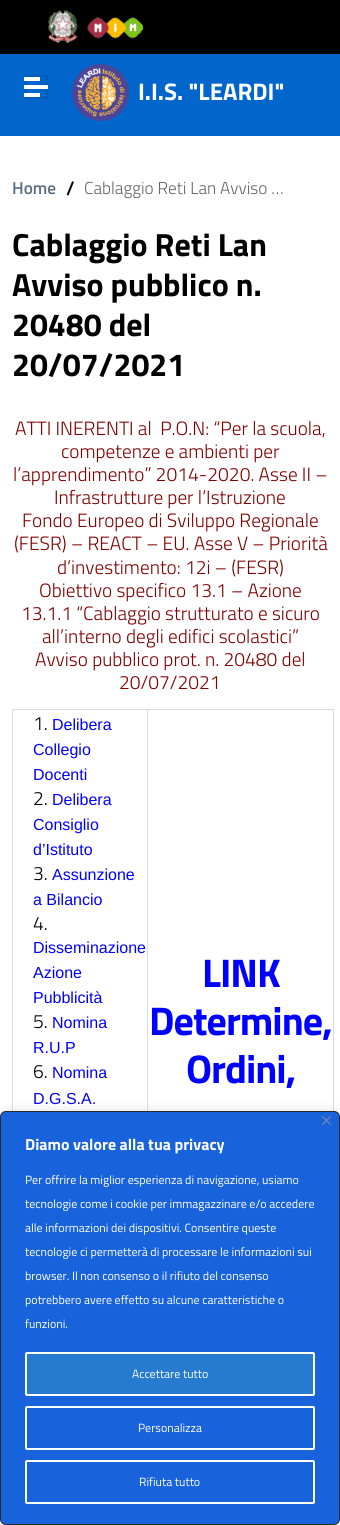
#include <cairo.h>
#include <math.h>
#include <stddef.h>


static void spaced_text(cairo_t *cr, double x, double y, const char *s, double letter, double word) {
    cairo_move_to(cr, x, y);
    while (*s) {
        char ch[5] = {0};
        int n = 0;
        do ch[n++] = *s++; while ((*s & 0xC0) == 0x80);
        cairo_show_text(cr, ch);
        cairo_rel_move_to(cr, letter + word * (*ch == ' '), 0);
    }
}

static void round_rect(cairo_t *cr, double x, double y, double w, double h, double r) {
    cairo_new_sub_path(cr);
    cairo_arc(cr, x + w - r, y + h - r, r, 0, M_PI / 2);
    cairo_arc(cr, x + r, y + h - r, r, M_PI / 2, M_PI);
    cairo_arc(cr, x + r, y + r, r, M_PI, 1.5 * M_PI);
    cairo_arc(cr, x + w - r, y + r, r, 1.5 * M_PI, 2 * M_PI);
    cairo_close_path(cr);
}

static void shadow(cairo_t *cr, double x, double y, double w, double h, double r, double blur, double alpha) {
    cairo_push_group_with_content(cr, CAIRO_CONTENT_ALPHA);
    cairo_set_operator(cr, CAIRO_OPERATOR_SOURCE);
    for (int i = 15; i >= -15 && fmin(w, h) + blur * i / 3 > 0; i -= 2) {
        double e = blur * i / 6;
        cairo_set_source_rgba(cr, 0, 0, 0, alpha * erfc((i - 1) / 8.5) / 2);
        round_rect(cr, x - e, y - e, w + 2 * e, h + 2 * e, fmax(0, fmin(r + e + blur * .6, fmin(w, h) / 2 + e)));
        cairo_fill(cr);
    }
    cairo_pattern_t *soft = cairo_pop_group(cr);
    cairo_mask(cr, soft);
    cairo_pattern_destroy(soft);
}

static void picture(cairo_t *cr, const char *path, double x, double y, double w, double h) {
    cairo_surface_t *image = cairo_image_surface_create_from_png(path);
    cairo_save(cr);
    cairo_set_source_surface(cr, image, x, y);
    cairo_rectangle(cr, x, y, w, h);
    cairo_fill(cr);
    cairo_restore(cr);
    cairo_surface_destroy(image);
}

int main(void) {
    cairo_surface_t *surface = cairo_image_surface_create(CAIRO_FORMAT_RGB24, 340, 1525);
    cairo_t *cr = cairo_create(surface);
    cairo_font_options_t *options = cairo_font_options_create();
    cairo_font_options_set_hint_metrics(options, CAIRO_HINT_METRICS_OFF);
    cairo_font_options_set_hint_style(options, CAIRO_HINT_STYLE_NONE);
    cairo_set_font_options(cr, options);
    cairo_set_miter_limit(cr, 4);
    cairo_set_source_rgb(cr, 1, 1, 1);
    cairo_paint(cr);
    cairo_set_source_rgb(cr, 0, 0.4, 0.8);
    cairo_rectangle(cr, 0, 54, 340, 82);
    cairo_fill(cr);
    cairo_set_source_rgb(cr, 0, 0, 0);
    cairo_rectangle(cr, 0, 0, 340, 54);
    cairo_fill(cr);
    picture(cr, "img1.png", 48, 10, 113, 34);
    cairo_rectangle(cr, 25, 76, 22, 22);
    cairo_set_source_rgb(cr, 0, 0.361, 0.722);
    cairo_stroke(cr);
    cairo_set_source_rgb(cr, 1, 1, 1);
    cairo_rectangle(cr, 24, 77, 16, 4);
    cairo_fill(cr);
    cairo_rectangle(cr, 24, 85, 24, 4);
    cairo_fill(cr);
    cairo_rectangle(cr, 24, 93, 16, 4);
    cairo_fill(cr);
    picture(cr, "img2.png", 72, 64, 57, 57);
    cairo_select_font_face(cr, "Titillium Web", CAIRO_FONT_SLANT_NORMAL, CAIRO_FONT_WEIGHT_BOLD);
    cairo_set_font_size(cr, 24);
    cairo_move_to(cr, 138, 100);
    cairo_show_text(cr, "I.I.S. \"LEARDI\"");
    cairo_select_font_face(cr, "Titillium Web SemiBold", CAIRO_FONT_SLANT_NORMAL, CAIRO_FONT_WEIGHT_NORMAL);
    cairo_set_font_size(cr, 17.25);
    cairo_set_source_rgb(cr, 0.357, 0.435, 0.51);
    cairo_move_to(cr, 12, 194);
    cairo_show_text(cr, "Home");
    cairo_set_font_size(cr, 19.25);
    cairo_set_source_rgb(cr, 0, 0, 0);
    cairo_move_to(cr, 66, 195);
    cairo_show_text(cr, "/");
    cairo_select_font_face(cr, "Titillium Web Light", CAIRO_FONT_SLANT_NORMAL, CAIRO_FONT_WEIGHT_NORMAL);
    cairo_set_font_size(cr, 17.25);
    cairo_set_source_rgb(cr, 0.396, 0.396, 0.4);
    cairo_move_to(cr, 84, 194);
    cairo_show_text(cr, "Cablaggio Reti Lan Avviso …");
    cairo_select_font_face(cr, "Titillium Web", CAIRO_FONT_SLANT_NORMAL, CAIRO_FONT_WEIGHT_BOLD);
    cairo_set_font_size(cr, 32);
    cairo_set_source_rgb(cr, 0, 0, 0);
    cairo_move_to(cr, 12, 256);
    cairo_show_text(cr, "Cablaggio Reti Lan");
    cairo_move_to(cr, 12, 296);
    cairo_show_text(cr, "Avviso pubblico n.");
    cairo_move_to(cr, 12, 336);
    cairo_show_text(cr, "20480 del");
    cairo_move_to(cr, 12, 376);
    cairo_show_text(cr, "20/07/2021");
    cairo_select_font_face(cr, "Titillium Web Light", CAIRO_FONT_SLANT_NORMAL, CAIRO_FONT_WEIGHT_NORMAL);
    cairo_set_font_size(cr, 19.25);
    cairo_set_source_rgb(cr, 0.502, 0, 0);
    cairo_move_to(cr, 15, 435);
    cairo_show_text(cr, "ATTI INERENTI al  P.O.N: “Per la scuola,");
    cairo_move_to(cr, 61, 458);
    cairo_show_text(cr, "competenze e ambienti per");
    cairo_move_to(cr, 13, 481);
    cairo_show_text(cr, "l’apprendimento” 2014-2020. Asse II –");
    cairo_move_to(cr, 54, 504);
    cairo_show_text(cr, "Infrastrutture per l’Istruzione");
    cairo_move_to(cr, 22, 527);
    cairo_show_text(cr, "Fondo Europeo di Sviluppo Regionale");
    cairo_move_to(cr, 14, 550);
    cairo_show_text(cr, "(FESR) – REACT – EU. Asse V – Priorità");
    cairo_move_to(cr, 57, 574);
    cairo_show_text(cr, "d’investimento: 12i – (FESR)");
    cairo_move_to(cr, 39, 597);
    cairo_show_text(cr, "Obiettivo specifico 13.1 – Azione");
    cairo_move_to(cr, 21, 620);
    cairo_show_text(cr, "13.1.1 “Cablaggio strutturato e sicuro");
    cairo_move_to(cr, 42, 643);
    cairo_show_text(cr, "all’interno degli edifici scolastici”");
    cairo_move_to(cr, 35, 666);
    cairo_show_text(cr, "Avviso pubblico prot. n. 20480 del");
    cairo_move_to(cr, 119, 689);
    cairo_show_text(cr, "20/07/2021");
    cairo_set_source_rgb(cr, 0.839, 0.863, 0.89);
    cairo_rectangle(cr, 12, 709, 322, 1);
    cairo_fill(cr);
    cairo_rectangle(cr, 333, 709, 1, 402);
    cairo_fill(cr);
    cairo_rectangle(cr, 12, 709, 1, 402);
    cairo_fill(cr);
    cairo_set_source_rgb(cr, 0, 0, 0);
    cairo_move_to(cr, 33, 730);
    cairo_show_text(cr, "1.");
    cairo_select_font_face(cr, "Liberation Sans", CAIRO_FONT_SLANT_NORMAL, CAIRO_FONT_WEIGHT_NORMAL);
    cairo_set_font_size(cr, 16);
    cairo_set_source_rgb(cr, 0, 0, 1);
    cairo_move_to(cr, 52, 730);
    cairo_show_text(cr, "Delibera");
    cairo_move_to(cr, 33, 755);
    cairo_show_text(cr, "Collegio");
    cairo_move_to(cr, 33, 780);
    cairo_show_text(cr, "Docenti");
    cairo_select_font_face(cr, "Titillium Web Light", CAIRO_FONT_SLANT_NORMAL, CAIRO_FONT_WEIGHT_NORMAL);
    cairo_set_font_size(cr, 19.25);
    cairo_set_source_rgb(cr, 0, 0, 0);
    cairo_move_to(cr, 33, 805);
    cairo_show_text(cr, "2.");
    cairo_select_font_face(cr, "Liberation Sans", CAIRO_FONT_SLANT_NORMAL, CAIRO_FONT_WEIGHT_NORMAL);
    cairo_set_font_size(cr, 16);
    cairo_set_source_rgb(cr, 0, 0, 1);
    cairo_move_to(cr, 52, 805);
    cairo_show_text(cr, "Delibera");
    cairo_move_to(cr, 33, 830);
    cairo_show_text(cr, "Consiglio");
    cairo_move_to(cr, 33, 855);
    cairo_show_text(cr, "d’Istituto");
    cairo_select_font_face(cr, "Titillium Web Light", CAIRO_FONT_SLANT_NORMAL, CAIRO_FONT_WEIGHT_NORMAL);
    cairo_set_font_size(cr, 19.25);
    cairo_set_source_rgb(cr, 0, 0, 0);
    cairo_move_to(cr, 33, 880);
    cairo_show_text(cr, "3.");
    cairo_select_font_face(cr, "Liberation Sans", CAIRO_FONT_SLANT_NORMAL, CAIRO_FONT_WEIGHT_NORMAL);
    cairo_set_font_size(cr, 16);
    cairo_set_source_rgb(cr, 0, 0, 1);
    cairo_move_to(cr, 52, 880);
    cairo_show_text(cr, "Assunzione");
    cairo_move_to(cr, 33, 905);
    cairo_show_text(cr, "a Bilancio");
    cairo_select_font_face(cr, "Titillium Web Light", CAIRO_FONT_SLANT_NORMAL, CAIRO_FONT_WEIGHT_NORMAL);
    cairo_set_font_size(cr, 19.25);
    cairo_set_source_rgb(cr, 0, 0, 0);
    cairo_move_to(cr, 33, 930);
    cairo_show_text(cr, "4.");
    cairo_select_font_face(cr, "Liberation Sans", CAIRO_FONT_SLANT_NORMAL, CAIRO_FONT_WEIGHT_NORMAL);
    cairo_set_font_size(cr, 16);
    cairo_set_source_rgb(cr, 0, 0, 1);
    cairo_move_to(cr, 33, 953);
    cairo_show_text(cr, "Disseminazione");
    cairo_move_to(cr, 33, 978);
    cairo_show_text(cr, "Azione");
    cairo_move_to(cr, 33, 1003);
    cairo_show_text(cr, "Pubblicità");
    cairo_select_font_face(cr, "Titillium Web Light", CAIRO_FONT_SLANT_NORMAL, CAIRO_FONT_WEIGHT_NORMAL);
    cairo_set_font_size(cr, 19.25);
    cairo_set_source_rgb(cr, 0, 0, 0);
    cairo_move_to(cr, 33, 1028);
    cairo_show_text(cr, "5.");
    cairo_select_font_face(cr, "Liberation Sans", CAIRO_FONT_SLANT_NORMAL, CAIRO_FONT_WEIGHT_NORMAL);
    cairo_set_font_size(cr, 16);
    cairo_set_source_rgb(cr, 0, 0, 1);
    cairo_move_to(cr, 52, 1028);
    cairo_show_text(cr, "Nomina");
    cairo_move_to(cr, 33, 1053);
    cairo_show_text(cr, "R.U.P");
    cairo_select_font_face(cr, "Titillium Web Light", CAIRO_FONT_SLANT_NORMAL, CAIRO_FONT_WEIGHT_NORMAL);
    cairo_set_font_size(cr, 19.25);
    cairo_set_source_rgb(cr, 0, 0, 0);
    cairo_move_to(cr, 33, 1078);
    cairo_show_text(cr, "6.");
    cairo_select_font_face(cr, "Liberation Sans", CAIRO_FONT_SLANT_NORMAL, CAIRO_FONT_WEIGHT_NORMAL);
    cairo_set_font_size(cr, 16);
    cairo_set_source_rgb(cr, 0, 0, 1);
    cairo_move_to(cr, 52, 1078);
    cairo_show_text(cr, "Nomina");
    cairo_move_to(cr, 33, 1104);
    cairo_show_text(cr, "D.G.S.A.");
    cairo_set_source_rgb(cr, 0.839, 0.863, 0.89);
    cairo_rectangle(cr, 147, 709, 1, 402);
    cairo_fill(cr);
    cairo_select_font_face(cr, "Titillium Web", CAIRO_FONT_SLANT_NORMAL, CAIRO_FONT_WEIGHT_BOLD);
    cairo_set_font_size(cr, 40);
    cairo_set_source_rgb(cr, 0, 0, 1);
    spaced_text(cr, 202, 987, "LINK", -1, 0);
    spaced_text(cr, 149, 1035, "Determine,", -1, 0);
    spaced_text(cr, 186, 1083, "Ordini,", -1, 0);
    cairo_set_source_rgb(cr, 0.675, 0.671, 0.671);
    shadow(cr, 0, 1110, 340, 414, 6, 5, 0.3);
    cairo_set_source_rgb(cr, 0.094, 0.388, 0.863);
    round_rect(cr, 0.5, 1111.5, 339, 413, 5.5);
    cairo_fill_preserve(cr);
    cairo_set_source_rgb(cr, 0.165, 0.165, 0.165);
    cairo_set_line_width(cr, 1);
    cairo_stroke(cr);
    picture(cr, "img3.png", 322, 1116, 9, 9);
    cairo_set_font_size(cr, 16);
    cairo_set_source_rgb(cr, 1, 1, 1);
    cairo_move_to(cr, 25, 1150);
    cairo_show_text(cr, "Diamo valore alla tua privacy");
    cairo_select_font_face(cr, "Titillium Web", CAIRO_FONT_SLANT_NORMAL, CAIRO_FONT_WEIGHT_NORMAL);
    cairo_set_font_size(cr, 12);
    cairo_move_to(cr, 25, 1184);
    cairo_show_text(cr, "Per offrire la miglior esperienza di navigazione, usiamo");
    cairo_move_to(cr, 25, 1208);
    cairo_show_text(cr, "tecnologie come i cookie per immagazzinare e/o accedere");
    cairo_move_to(cr, 25, 1232);
    cairo_show_text(cr, "alle informazioni dei dispositivi. Consentire queste");
    cairo_move_to(cr, 25, 1256);
    cairo_show_text(cr, "tecnologie ci permetterà di processare le informazioni sui");
    cairo_move_to(cr, 25, 1280);
    cairo_show_text(cr, "browser. Il non consenso o il rifiuto del consenso");
    cairo_move_to(cr, 25, 1304);
    cairo_show_text(cr, "potrebbero avere effetto su alcune caratteristiche o");
    cairo_move_to(cr, 25, 1328);
    cairo_show_text(cr, "funzioni.");
    cairo_set_source_rgb(cr, 0.149, 0.478, 0.816);
    round_rect(cr, 26, 1353, 288, 42, 1);
    cairo_fill_preserve(cr);
    cairo_set_source_rgb(cr, 1, 1, 1);
    cairo_set_line_width(cr, 2);
    cairo_stroke(cr);
    cairo_move_to(cr, 132, 1378);
    cairo_show_text(cr, "Accettare tutto");
    round_rect(cr, 26, 1407, 288, 42, 1);
    cairo_stroke(cr);
    cairo_move_to(cr, 138, 1432);
    cairo_show_text(cr, "Personalizza");
    round_rect(cr, 26, 1461, 288, 42, 1);
    cairo_stroke(cr);
    cairo_move_to(cr, 139, 1486);
    cairo_show_text(cr, "Rifiuta tutto");
    cairo_surface_write_to_png(surface, "page.png");
    cairo_font_options_destroy(options);
    cairo_destroy(cr);
    cairo_surface_destroy(surface);
    return 0;
}
